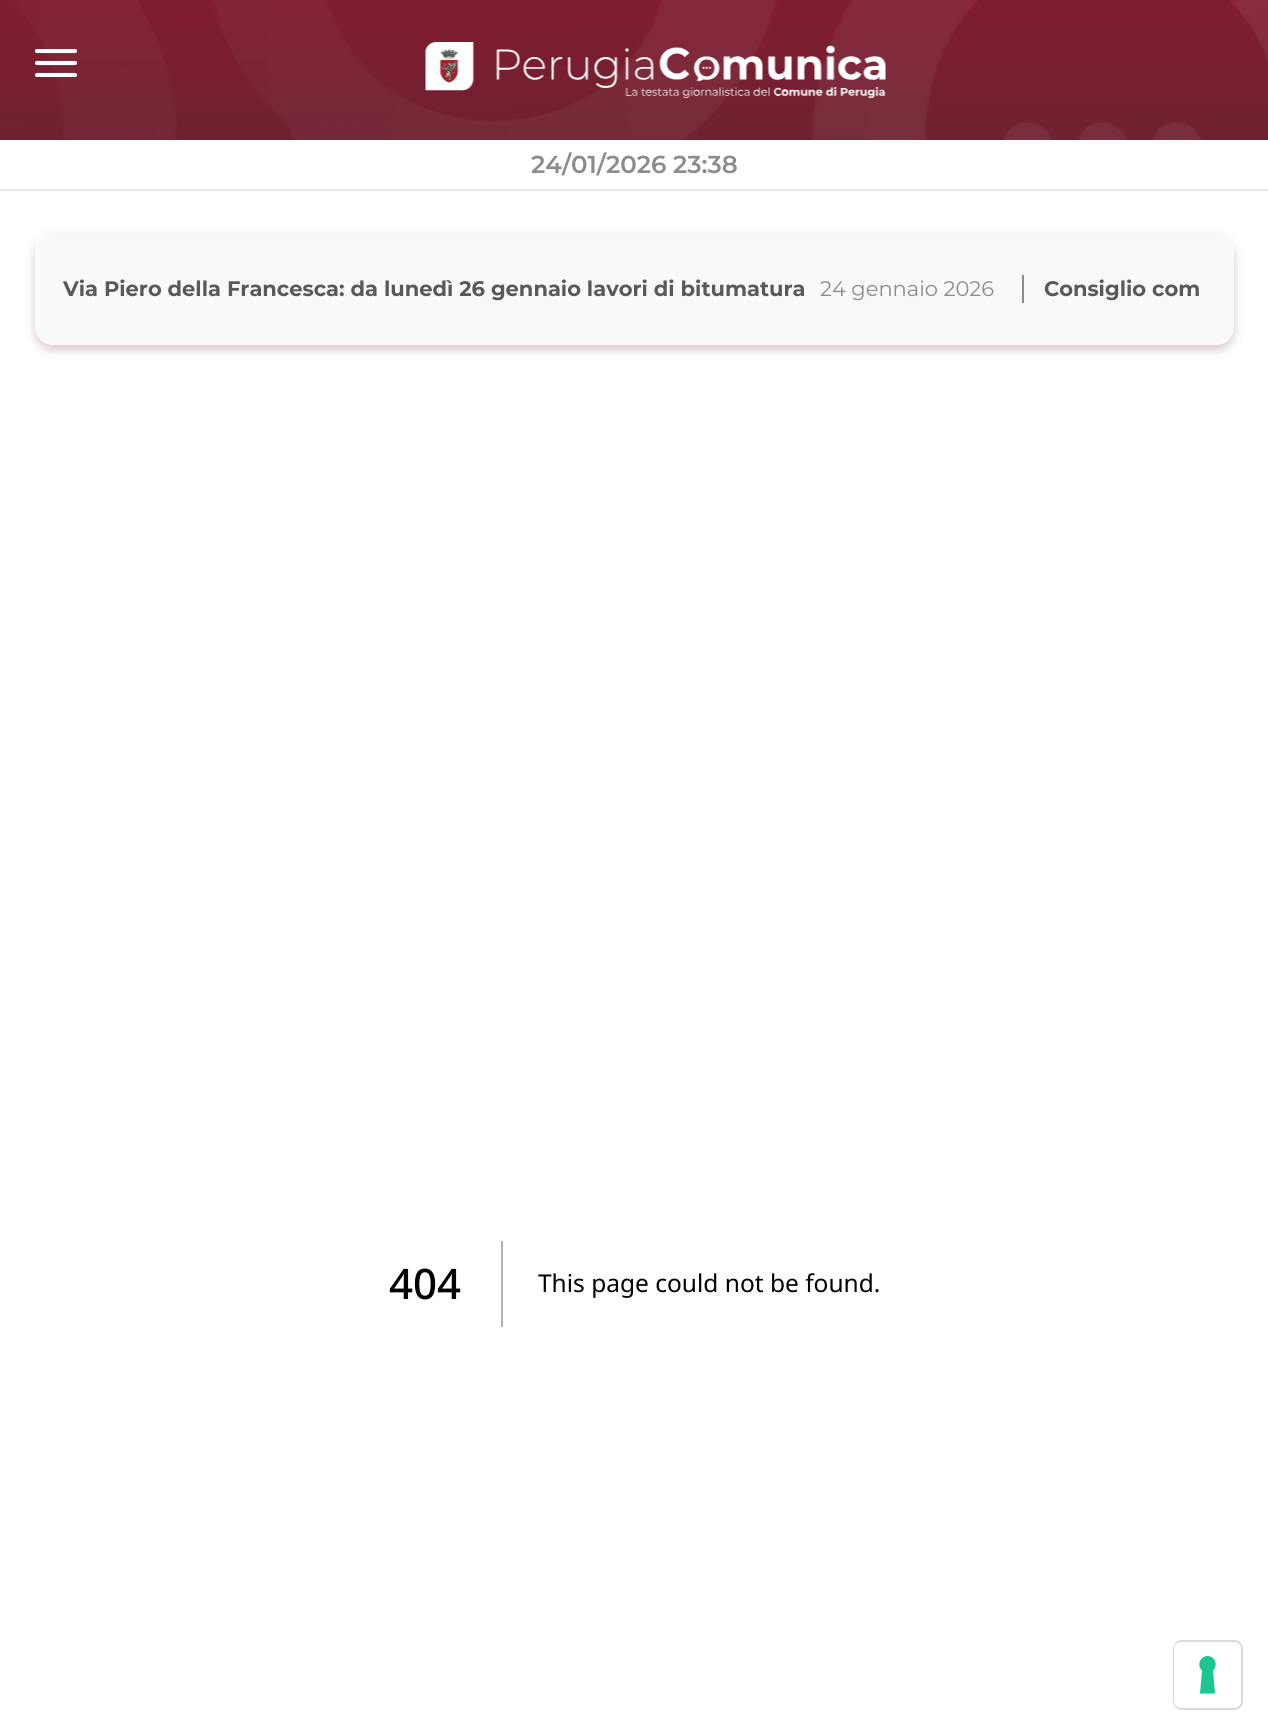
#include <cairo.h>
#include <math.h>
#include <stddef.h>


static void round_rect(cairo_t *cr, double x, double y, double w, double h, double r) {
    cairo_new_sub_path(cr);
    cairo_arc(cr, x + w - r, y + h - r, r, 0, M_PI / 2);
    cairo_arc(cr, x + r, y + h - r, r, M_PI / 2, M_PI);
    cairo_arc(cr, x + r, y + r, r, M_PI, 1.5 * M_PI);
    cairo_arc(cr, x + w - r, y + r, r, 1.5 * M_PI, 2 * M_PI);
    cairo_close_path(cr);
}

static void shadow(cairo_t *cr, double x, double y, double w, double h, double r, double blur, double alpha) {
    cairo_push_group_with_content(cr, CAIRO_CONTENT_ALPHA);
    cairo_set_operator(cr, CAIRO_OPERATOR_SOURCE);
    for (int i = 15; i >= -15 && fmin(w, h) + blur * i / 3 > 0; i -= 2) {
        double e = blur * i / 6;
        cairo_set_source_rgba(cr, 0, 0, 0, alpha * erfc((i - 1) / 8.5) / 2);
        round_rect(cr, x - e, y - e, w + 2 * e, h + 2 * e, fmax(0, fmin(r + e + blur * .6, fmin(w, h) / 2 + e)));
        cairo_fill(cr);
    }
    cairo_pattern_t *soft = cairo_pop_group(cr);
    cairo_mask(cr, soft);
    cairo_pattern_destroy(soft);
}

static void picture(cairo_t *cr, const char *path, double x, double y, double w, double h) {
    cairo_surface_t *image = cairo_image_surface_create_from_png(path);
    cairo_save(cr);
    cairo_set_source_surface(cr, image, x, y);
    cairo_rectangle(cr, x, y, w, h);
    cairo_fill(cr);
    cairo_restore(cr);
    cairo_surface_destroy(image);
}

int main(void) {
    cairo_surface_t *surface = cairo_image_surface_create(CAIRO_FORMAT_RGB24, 1268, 1735);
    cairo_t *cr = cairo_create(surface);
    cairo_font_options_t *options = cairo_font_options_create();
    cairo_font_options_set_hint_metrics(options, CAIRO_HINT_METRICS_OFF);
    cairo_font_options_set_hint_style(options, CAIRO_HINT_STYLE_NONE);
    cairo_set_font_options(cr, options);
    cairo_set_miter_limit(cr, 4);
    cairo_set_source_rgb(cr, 1, 1, 1);
    cairo_paint(cr);
    picture(cr, "img1.png", 0, 0, 1268, 140);
    cairo_save(cr);
    cairo_rectangle(cr, 35, 49, 42, 28);
    cairo_clip(cr);
    cairo_new_path(cr);
    cairo_move_to(cr, 37, 51);
    cairo_line_to(cr, 75, 51);
    cairo_move_to(cr, 37, 63);
    cairo_line_to(cr, 75, 63);
    cairo_move_to(cr, 37, 75);
    cairo_line_to(cr, 75, 75);
    cairo_set_source_rgb(cr, 1, 1, 1);
    cairo_set_line_width(cr, 4.1);
    cairo_set_line_cap(cr, CAIRO_LINE_CAP_ROUND);
    cairo_set_line_join(cr, CAIRO_LINE_JOIN_ROUND);
    cairo_stroke(cr);
    cairo_restore(cr);
    picture(cr, "img2.png", 425, 42, 461, 56);
    cairo_set_source_rgb(cr, 0.898, 0.906, 0.922);
    cairo_rectangle(cr, 0, 189, 1268, 2);
    cairo_fill(cr);
    cairo_select_font_face(cr, "Montserrat SemiBold", CAIRO_FONT_SLANT_NORMAL, CAIRO_FONT_WEIGHT_NORMAL);
    cairo_set_font_size(cr, 24.5);
    cairo_set_source_rgb(cr, 0.549, 0.549, 0.549);
    cairo_move_to(cr, 531, 173);
    cairo_show_text(cr, "24/01/2026 23:38");
    cairo_save(cr);
    cairo_set_fill_rule(cr, CAIRO_FILL_RULE_EVEN_ODD);
    cairo_new_path(cr);
    cairo_move_to(cr, 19, 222);
    cairo_line_to(cr, 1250, 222);
    cairo_line_to(cr, 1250, 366);
    cairo_line_to(cr, 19, 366);
    cairo_close_path(cr);
    cairo_move_to(cr, 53, 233);
    cairo_line_to(cr, 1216, 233);
    cairo_curve_to(cr, 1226, 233, 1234, 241, 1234, 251);
    cairo_line_to(cr, 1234, 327);
    cairo_curve_to(cr, 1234, 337, 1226, 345, 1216, 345);
    cairo_line_to(cr, 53, 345);
    cairo_curve_to(cr, 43, 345, 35, 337, 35, 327);
    cairo_line_to(cr, 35, 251);
    cairo_curve_to(cr, 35, 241, 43, 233, 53, 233);
    cairo_close_path(cr);
    cairo_clip(cr);
    cairo_set_source_rgb(cr, 0.42, 0.137, 0.192);
    shadow(cr, 35, 238, 1199, 112, 18, 5, 0.25);
    cairo_restore(cr);
    cairo_set_source_rgba(cr, 0.741, 0.741, 0.741, 0.09);
    round_rect(cr, 35, 233, 1199, 112, 18);
    cairo_fill(cr);
    cairo_select_font_face(cr, "Montserrat", CAIRO_FONT_SLANT_NORMAL, CAIRO_FONT_WEIGHT_BOLD);
    cairo_set_font_size(cr, 21);
    cairo_set_source_rgb(cr, 0.349, 0.349, 0.349);
    cairo_move_to(cr, 63, 296);
    cairo_show_text(cr, "Via Piero della Francesca: da lunedì 26 gennaio lavori di bitumatura");
    cairo_set_source_rgb(cr, 0.549, 0.549, 0.549);
    cairo_rectangle(cr, 1022, 275, 2, 28);
    cairo_fill(cr);
    cairo_select_font_face(cr, "Montserrat", CAIRO_FONT_SLANT_NORMAL, CAIRO_FONT_WEIGHT_NORMAL);
    cairo_move_to(cr, 820, 296);
    cairo_show_text(cr, "24 gennaio 2026");
    cairo_select_font_face(cr, "Montserrat", CAIRO_FONT_SLANT_NORMAL, CAIRO_FONT_WEIGHT_BOLD);
    cairo_set_source_rgb(cr, 0.349, 0.349, 0.349);
    cairo_move_to(cr, 1044, 296);
    cairo_show_text(cr, "Consiglio com");
    cairo_set_source_rgb(cr, 0.702, 0.702, 0.702);
    cairo_rectangle(cr, 501, 1241, 2, 86);
    cairo_fill(cr);
    cairo_select_font_face(cr, "Noto Sans Medium", CAIRO_FONT_SLANT_NORMAL, CAIRO_FONT_WEIGHT_NORMAL);
    cairo_set_font_size(cr, 42);
    cairo_set_source_rgb(cr, 0, 0, 0);
    cairo_move_to(cr, 389, 1299);
    cairo_show_text(cr, "404");
    cairo_select_font_face(cr, "Noto Sans", CAIRO_FONT_SLANT_NORMAL, CAIRO_FONT_WEIGHT_NORMAL);
    cairo_set_font_size(cr, 24.5);
    cairo_move_to(cr, 538, 1292);
    cairo_show_text(cr, "This page could not be found.");
    round_rect(cr, 1174, 1641, 68, 68, 8);
    cairo_set_source_rgb(cr, 0.851, 0.851, 0.851);
    cairo_stroke(cr);
    cairo_set_source_rgb(cr, 1, 1, 1);
    round_rect(cr, 1174, 1642, 67, 66, 7);
    cairo_fill(cr);
    cairo_set_source_rgb(cr, 0.11, 0.776, 0.569);
    cairo_set_fill_rule(cr, CAIRO_FILL_RULE_EVEN_ODD);
    cairo_new_path(cr);
    cairo_move_to(cr, 1207.5, 1656);
    cairo_curve_to(cr, 1215, 1656, 1218.5, 1665.5, 1213, 1670.5);
    cairo_line_to(cr, 1215, 1693.5);
    cairo_line_to(cr, 1200, 1693.5);
    cairo_line_to(cr, 1202, 1670.5);
    cairo_curve_to(cr, 1196.5, 1665.5, 1200, 1656, 1207.5, 1656);
    cairo_close_path(cr);
    cairo_fill(cr);
    cairo_surface_write_to_png(surface, "page.png");
    cairo_font_options_destroy(options);
    cairo_destroy(cr);
    cairo_surface_destroy(surface);
    return 0;
}
